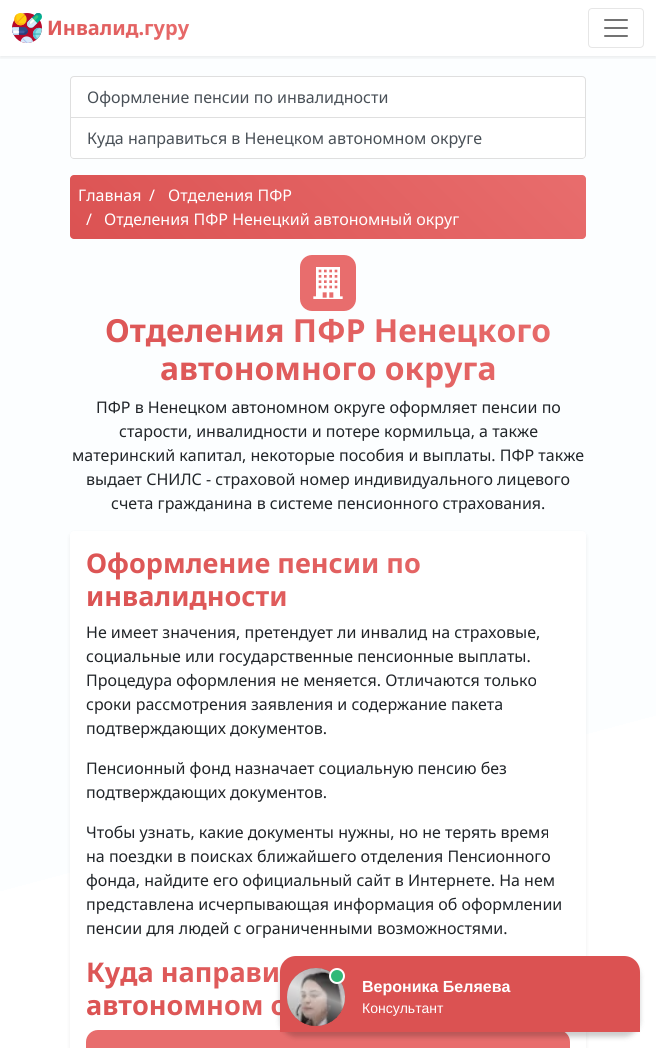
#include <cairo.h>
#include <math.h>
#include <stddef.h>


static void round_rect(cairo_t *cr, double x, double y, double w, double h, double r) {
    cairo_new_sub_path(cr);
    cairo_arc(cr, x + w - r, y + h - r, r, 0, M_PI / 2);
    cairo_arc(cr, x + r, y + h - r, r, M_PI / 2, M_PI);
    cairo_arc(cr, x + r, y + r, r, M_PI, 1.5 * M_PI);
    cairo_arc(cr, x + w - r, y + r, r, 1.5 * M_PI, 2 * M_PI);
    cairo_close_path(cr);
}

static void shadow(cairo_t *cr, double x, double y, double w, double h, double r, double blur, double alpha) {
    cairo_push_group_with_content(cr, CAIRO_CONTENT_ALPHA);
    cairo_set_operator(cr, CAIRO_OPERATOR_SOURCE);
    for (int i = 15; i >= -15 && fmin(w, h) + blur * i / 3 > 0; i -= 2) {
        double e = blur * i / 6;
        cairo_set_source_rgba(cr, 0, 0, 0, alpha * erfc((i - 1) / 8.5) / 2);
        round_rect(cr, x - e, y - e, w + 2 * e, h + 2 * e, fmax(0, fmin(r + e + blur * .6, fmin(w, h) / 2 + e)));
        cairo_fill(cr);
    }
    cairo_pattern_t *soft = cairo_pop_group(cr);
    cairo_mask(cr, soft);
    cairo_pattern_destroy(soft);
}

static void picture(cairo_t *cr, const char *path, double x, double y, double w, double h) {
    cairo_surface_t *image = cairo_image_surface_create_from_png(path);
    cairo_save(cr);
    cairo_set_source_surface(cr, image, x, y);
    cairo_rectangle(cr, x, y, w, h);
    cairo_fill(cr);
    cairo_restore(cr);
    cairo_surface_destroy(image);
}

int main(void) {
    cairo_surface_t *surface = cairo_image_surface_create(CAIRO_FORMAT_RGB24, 656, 1048);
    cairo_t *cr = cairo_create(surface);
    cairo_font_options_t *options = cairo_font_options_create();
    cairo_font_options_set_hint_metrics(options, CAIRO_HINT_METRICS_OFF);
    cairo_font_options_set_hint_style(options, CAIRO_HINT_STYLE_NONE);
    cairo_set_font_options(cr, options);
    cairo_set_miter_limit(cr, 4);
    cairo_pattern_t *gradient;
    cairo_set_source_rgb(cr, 1, 1, 1);
    cairo_paint(cr);
    gradient = cairo_pattern_create_linear(119, 24, 537, 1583);
    cairo_pattern_add_color_stop_rgba(gradient, 0.5, 0.988, 0.996, 1, 1);
    cairo_pattern_add_color_stop_rgba(gradient, 0.5, 1, 1, 1, 1);
    cairo_set_source(cr, gradient);
    cairo_pattern_destroy(gradient);
    cairo_rectangle(cr, 0, 56, 656, 835);
    cairo_fill(cr);
    cairo_save(cr);
    cairo_rectangle(cr, 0, 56, 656, 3);
    cairo_clip(cr);
    cairo_set_source_rgb(cr, 0, 0, 0);
    shadow(cr, 0, 2, 656, 56, 0, 2, 0.07);
    cairo_restore(cr);
    picture(cr, "img1.png", 12, 13, 30, 30);
    cairo_select_font_face(cr, "Noto Sans", CAIRO_FONT_SLANT_NORMAL, CAIRO_FONT_WEIGHT_BOLD);
    cairo_set_font_size(cr, 20);
    gradient = cairo_pattern_create_linear(46, 82, 155, -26);
    cairo_pattern_add_color_stop_rgba(gradient, 0, 0.859, 0.322, 0.322, 1);
    cairo_pattern_add_color_stop_rgba(gradient, 1, 0.91, 0.427, 0.427, 1);
    cairo_set_source(cr, gradient);
    cairo_pattern_destroy(gradient);
    cairo_move_to(cr, 47, 35);
    cairo_show_text(cr, "Инвалид.гуру");
    round_rect(cr, 588.5, 8.5, 55, 39, 3.5);
    cairo_set_source_rgb(cr, 0.902, 0.902, 0.902);
    cairo_set_line_width(cr, 1);
    cairo_stroke(cr);
    picture(cr, "img2.png", 604, 19, 24, 18);
    cairo_set_source_rgb(cr, 1, 1, 1);
    cairo_new_path(cr);
    cairo_move_to(cr, 74, 76.5);
    cairo_line_to(cr, 582, 76.5);
    cairo_curve_to(cr, 584, 76.5, 585.5, 78, 585.5, 80);
    cairo_line_to(cr, 585.5, 117.5);
    cairo_line_to(cr, 70.5, 117.5);
    cairo_line_to(cr, 70.5, 80);
    cairo_curve_to(cr, 70.5, 78, 72, 76.5, 74, 76.5);
    cairo_close_path(cr);
    cairo_fill_preserve(cr);
    cairo_set_source_rgb(cr, 0.875, 0.875, 0.875);
    cairo_stroke(cr);
    cairo_select_font_face(cr, "Noto Sans", CAIRO_FONT_SLANT_NORMAL, CAIRO_FONT_WEIGHT_NORMAL);
    cairo_set_font_size(cr, 16);
    cairo_set_source_rgb(cr, 0.286, 0.314, 0.341);
    cairo_move_to(cr, 87, 103);
    cairo_show_text(cr, "Оформление пенсии по инвалидности");
    cairo_set_source_rgb(cr, 1, 1, 1);
    cairo_new_path(cr);
    cairo_move_to(cr, 70, 118);
    cairo_line_to(cr, 586, 118);
    cairo_line_to(cr, 586, 155);
    cairo_curve_to(cr, 586, 157, 584, 159, 582, 159);
    cairo_line_to(cr, 74, 159);
    cairo_curve_to(cr, 72, 159, 70, 157, 70, 155);
    cairo_close_path(cr);
    cairo_fill(cr);
    cairo_set_source_rgb(cr, 0.875, 0.875, 0.875);
    cairo_set_fill_rule(cr, CAIRO_FILL_RULE_EVEN_ODD);
    cairo_new_path(cr);
    cairo_move_to(cr, 70, 118);
    cairo_line_to(cr, 586, 118);
    cairo_line_to(cr, 586, 155);
    cairo_curve_to(cr, 586, 157, 584, 159, 582, 159);
    cairo_line_to(cr, 74, 159);
    cairo_curve_to(cr, 72, 159, 70, 157, 70, 155);
    cairo_close_path(cr);
    cairo_move_to(cr, 71, 118);
    cairo_line_to(cr, 585, 118);
    cairo_line_to(cr, 585, 155);
    cairo_curve_to(cr, 585, 157, 584, 158, 582, 158);
    cairo_line_to(cr, 74, 158);
    cairo_curve_to(cr, 72, 158, 71, 157, 71, 155);
    cairo_close_path(cr);
    cairo_fill(cr);
    cairo_set_source_rgb(cr, 0.286, 0.314, 0.341);
    cairo_move_to(cr, 87, 144);
    cairo_show_text(cr, "Куда направиться в Ненецком автономном округе");
    gradient = cairo_pattern_create_linear(183, 352, 473, 62);
    cairo_pattern_add_color_stop_rgba(gradient, 0, 0.859, 0.322, 0.322, 1);
    cairo_pattern_add_color_stop_rgba(gradient, 1, 0.91, 0.427, 0.427, 1);
    cairo_set_source(cr, gradient);
    cairo_pattern_destroy(gradient);
    round_rect(cr, 70, 175, 516, 64, 4);
    cairo_fill(cr);
    cairo_set_source_rgb(cr, 1, 1, 1);
    cairo_move_to(cr, 78, 201);
    cairo_show_text(cr, "Главная");
    cairo_move_to(cr, 149, 201);
    cairo_show_text(cr, "/");
    cairo_move_to(cr, 168, 201);
    cairo_show_text(cr, "Отделения ПФР");
    cairo_move_to(cr, 86, 225);
    cairo_show_text(cr, "/");
    cairo_move_to(cr, 104, 225);
    cairo_show_text(cr, "Отделения ПФР Ненецкий автономный округ");
    cairo_set_source_rgb(cr, 0.91, 0.427, 0.427);
    round_rect(cr, 300, 255, 56, 56, 12);
    cairo_fill(cr);
    picture(cr, "img3.png", 313, 267, 30, 32);
    cairo_select_font_face(cr, "Noto Sans", CAIRO_FONT_SLANT_NORMAL, CAIRO_FONT_WEIGHT_BOLD);
    cairo_set_font_size(cr, 31.8);
    gradient = cairo_pattern_create_linear(180, 497, 476, 201);
    cairo_pattern_add_color_stop_rgba(gradient, 0, 0.859, 0.322, 0.322, 1);
    cairo_pattern_add_color_stop_rgba(gradient, 1, 0.91, 0.427, 0.427, 1);
    cairo_set_source(cr, gradient);
    cairo_pattern_destroy(gradient);
    cairo_move_to(cr, 105, 342);
    cairo_show_text(cr, "Отделения ПФР Ненецкого");
    cairo_move_to(cr, 160, 380);
    cairo_show_text(cr, "автономного округа");
    cairo_select_font_face(cr, "Noto Sans", CAIRO_FONT_SLANT_NORMAL, CAIRO_FONT_WEIGHT_NORMAL);
    cairo_set_font_size(cr, 16);
    cairo_set_source_rgb(cr, 0.129, 0.145, 0.161);
    cairo_move_to(cr, 96, 413);
    cairo_show_text(cr, "ПФР в Ненецком автономном округе оформляет пенсии по");
    cairo_move_to(cr, 119, 437);
    cairo_show_text(cr, "старости, инвалидности и потере кормильца, а также");
    cairo_move_to(cr, 72, 461);
    cairo_show_text(cr, "материнский капитал, некоторые пособия и выплаты. ПФР также");
    cairo_move_to(cr, 86, 485);
    cairo_show_text(cr, "выдает СНИЛС - страховой номер индивидуального лицевого");
    cairo_move_to(cr, 111, 509);
    cairo_show_text(cr, "счета гражданина в системе пенсионного страхования.");
    cairo_set_source_rgb(cr, 0, 0, 0);
    shadow(cr, 70, 533, 516, 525, 4, 2, 0.07);
    cairo_set_source_rgb(cr, 1, 1, 1);
    round_rect(cr, 70, 531, 516, 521, 4);
    cairo_fill(cr);
    cairo_select_font_face(cr, "Noto Sans", CAIRO_FONT_SLANT_NORMAL, CAIRO_FONT_WEIGHT_BOLD);
    cairo_set_font_size(cr, 27.1);
    gradient = cairo_pattern_create_linear(191, 717, 465, 443);
    cairo_pattern_add_color_stop_rgba(gradient, 0, 0.859, 0.322, 0.322, 1);
    cairo_pattern_add_color_stop_rgba(gradient, 1, 0.91, 0.427, 0.427, 1);
    cairo_set_source(cr, gradient);
    cairo_pattern_destroy(gradient);
    cairo_move_to(cr, 86, 573);
    cairo_show_text(cr, "Оформление пенсии по");
    cairo_move_to(cr, 86, 606);
    cairo_show_text(cr, "инвалидности");
    cairo_select_font_face(cr, "Noto Sans", CAIRO_FONT_SLANT_NORMAL, CAIRO_FONT_WEIGHT_NORMAL);
    cairo_set_font_size(cr, 16);
    cairo_set_source_rgb(cr, 0.129, 0.145, 0.161);
    cairo_move_to(cr, 86, 638);
    cairo_show_text(cr, "Не имеет значения, претендует ли инвалид на страховые,");
    cairo_move_to(cr, 86, 662);
    cairo_show_text(cr, "социальные или государственные пенсионные выплаты.");
    cairo_move_to(cr, 86, 686);
    cairo_show_text(cr, "Процедура оформления не меняется. Отличаются только");
    cairo_move_to(cr, 86, 710);
    cairo_show_text(cr, "сроки рассмотрения заявления и содержание пакета");
    cairo_move_to(cr, 86, 734);
    cairo_show_text(cr, "подтверждающих документов.");
    cairo_move_to(cr, 86, 774);
    cairo_show_text(cr, "Пенсионный фонд назначает социальную пенсию без");
    cairo_move_to(cr, 86, 798);
    cairo_show_text(cr, "подтверждающих документов.");
    cairo_move_to(cr, 86, 838);
    cairo_show_text(cr, "Чтобы узнать, какие документы нужны, но не терять время");
    cairo_move_to(cr, 86, 862);
    cairo_show_text(cr, "на поездки в поисках ближайшего отделения Пенсионного");
    cairo_move_to(cr, 86, 886);
    cairo_show_text(cr, "фонда, найдите его официальный сайт в Интернете. На нем");
    cairo_move_to(cr, 86, 910);
    cairo_show_text(cr, "представлена исчерпывающая информация об оформлении");
    cairo_move_to(cr, 86, 934);
    cairo_show_text(cr, "пенсии для людей с ограниченными возможностями.");
    cairo_select_font_face(cr, "Noto Sans", CAIRO_FONT_SLANT_NORMAL, CAIRO_FONT_WEIGHT_BOLD);
    cairo_set_font_size(cr, 27.1);
    gradient = cairo_pattern_create_linear(191, 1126, 465, 852);
    cairo_pattern_add_color_stop_rgba(gradient, 0, 0.859, 0.322, 0.322, 1);
    cairo_pattern_add_color_stop_rgba(gradient, 1, 0.91, 0.427, 0.427, 1);
    cairo_set_source(cr, gradient);
    cairo_pattern_destroy(gradient);
    cairo_move_to(cr, 86, 982);
    cairo_show_text(cr, "Куда направи");
    cairo_move_to(cr, 86, 1015);
    cairo_show_text(cr, "автономном о");
    cairo_set_source_rgb(cr, 0.91, 0.427, 0.427);
    round_rect(cr, 86, 1030, 484, 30, 12);
    cairo_fill(cr);
    cairo_set_source_rgb(cr, 0, 0, 0);
    shadow(cr, 280, 961, 360, 76, 16, 2.5, 0.2);
    cairo_set_source_rgb(cr, 0.859, 0.322, 0.322);
    cairo_new_path(cr);
    cairo_move_to(cr, 296, 956);
    cairo_line_to(cr, 624, 956);
    cairo_curve_to(cr, 633, 956, 640, 963, 640, 972);
    cairo_line_to(cr, 640, 1032);
    cairo_line_to(cr, 280, 1032);
    cairo_line_to(cr, 280, 972);
    cairo_curve_to(cr, 280, 963, 287, 956, 296, 956);
    cairo_close_path(cr);
    cairo_fill(cr);
    cairo_set_source_rgb(cr, 0.643, 0.243, 0.243);
    cairo_arc(cr, 316, 997, 29, 0, 2 * M_PI);
    cairo_fill(cr);
    picture(cr, "img4.png", 287, 968, 58, 58);
    gradient = cairo_pattern_create_linear(326, 973, 306, 1028);
    cairo_pattern_add_color_stop_rgba(gradient, 0, 1, 1, 1, 0);
    cairo_pattern_add_color_stop_rgba(gradient, 0.4, 1, 1, 1, 0.6);
    cairo_pattern_add_color_stop_rgba(gradient, 0.6, 1, 1, 1, 0.36);
    cairo_pattern_add_color_stop_rgba(gradient, 1, 1, 1, 1, 0);
    cairo_set_source(cr, gradient);
    cairo_pattern_destroy(gradient);
    cairo_set_fill_rule(cr, CAIRO_FILL_RULE_WINDING);
    cairo_new_path(cr);
    cairo_move_to(cr, 313, 968);
    cairo_line_to(cr, 337, 977);
    cairo_curve_to(cr, 342, 982, 345, 989, 345, 997);
    cairo_curve_to(cr, 345, 1013, 332, 1026, 316, 1026);
    cairo_curve_to(cr, 300, 1026, 287, 1013, 287, 997);
    cairo_curve_to(cr, 287, 982, 298, 970, 313, 968);
    cairo_close_path(cr);
    cairo_fill(cr);
    cairo_set_source_rgb(cr, 0.192, 0.725, 0.471);
    cairo_arc(cr, 337, 976, 7, 0, 2 * M_PI);
    cairo_fill_preserve(cr);
    cairo_set_source_rgb(cr, 1, 1, 1);
    cairo_set_line_width(cr, 2);
    cairo_stroke(cr);
    cairo_select_font_face(cr, "Liberation Sans", CAIRO_FONT_SLANT_NORMAL, CAIRO_FONT_WEIGHT_BOLD);
    cairo_set_font_size(cr, 16);
    cairo_move_to(cr, 362, 992);
    cairo_show_text(cr, "Вероника Беляева");
    cairo_select_font_face(cr, "Liberation Sans", CAIRO_FONT_SLANT_NORMAL, CAIRO_FONT_WEIGHT_NORMAL);
    cairo_set_font_size(cr, 14);
    cairo_move_to(cr, 362, 1013);
    cairo_show_text(cr, "Консультант");
    cairo_surface_write_to_png(surface, "page.png");
    cairo_font_options_destroy(options);
    cairo_destroy(cr);
    cairo_surface_destroy(surface);
    return 0;
}
